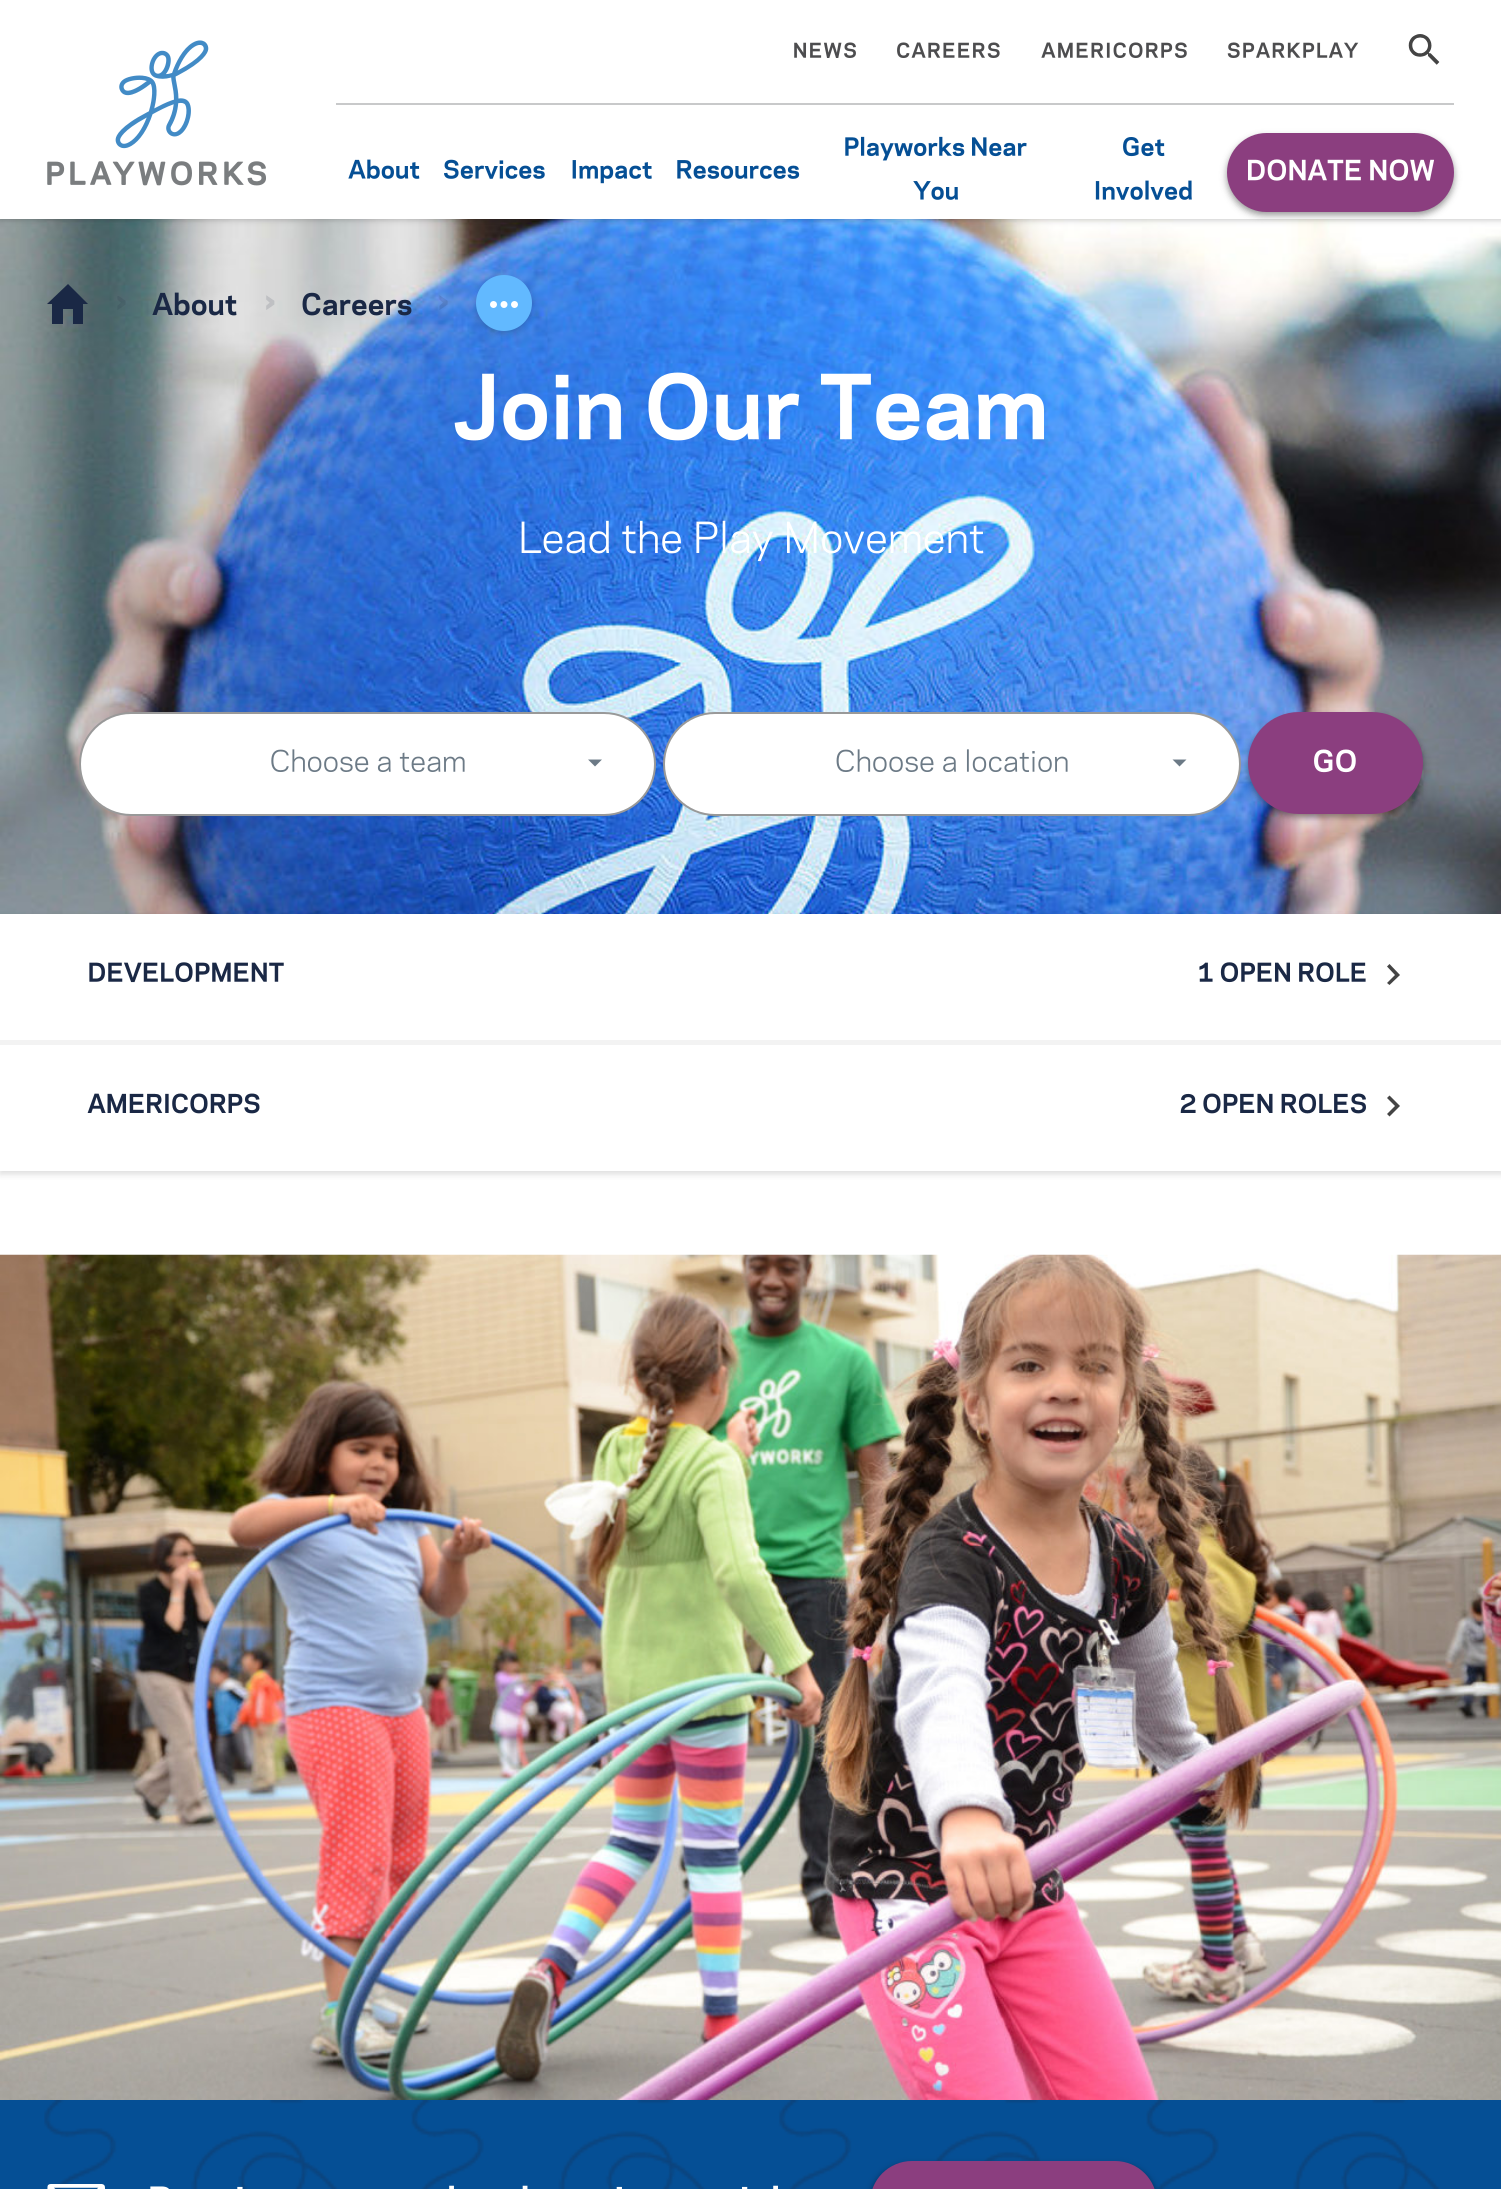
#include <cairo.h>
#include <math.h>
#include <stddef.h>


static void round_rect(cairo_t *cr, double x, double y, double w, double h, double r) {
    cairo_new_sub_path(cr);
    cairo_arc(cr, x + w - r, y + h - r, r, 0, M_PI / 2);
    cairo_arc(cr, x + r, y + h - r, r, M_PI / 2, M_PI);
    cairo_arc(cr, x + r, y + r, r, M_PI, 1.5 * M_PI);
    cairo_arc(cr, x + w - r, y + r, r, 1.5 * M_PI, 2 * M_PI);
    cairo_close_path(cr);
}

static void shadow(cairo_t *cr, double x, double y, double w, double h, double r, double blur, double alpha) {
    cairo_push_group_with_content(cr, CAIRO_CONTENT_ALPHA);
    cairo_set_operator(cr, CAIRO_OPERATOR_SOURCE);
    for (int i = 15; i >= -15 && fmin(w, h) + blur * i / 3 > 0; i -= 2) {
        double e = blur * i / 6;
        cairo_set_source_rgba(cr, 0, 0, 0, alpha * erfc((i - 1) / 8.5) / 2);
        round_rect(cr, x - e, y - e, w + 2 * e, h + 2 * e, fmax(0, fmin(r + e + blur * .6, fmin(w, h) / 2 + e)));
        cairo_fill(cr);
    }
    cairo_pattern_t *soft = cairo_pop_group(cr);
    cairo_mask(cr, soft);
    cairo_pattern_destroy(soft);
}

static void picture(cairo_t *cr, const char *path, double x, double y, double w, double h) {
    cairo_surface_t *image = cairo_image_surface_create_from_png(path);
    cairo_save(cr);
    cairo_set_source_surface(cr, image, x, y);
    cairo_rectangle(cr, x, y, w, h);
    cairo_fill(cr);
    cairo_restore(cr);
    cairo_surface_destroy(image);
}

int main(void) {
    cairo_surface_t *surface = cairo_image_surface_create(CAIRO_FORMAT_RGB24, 1501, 2189);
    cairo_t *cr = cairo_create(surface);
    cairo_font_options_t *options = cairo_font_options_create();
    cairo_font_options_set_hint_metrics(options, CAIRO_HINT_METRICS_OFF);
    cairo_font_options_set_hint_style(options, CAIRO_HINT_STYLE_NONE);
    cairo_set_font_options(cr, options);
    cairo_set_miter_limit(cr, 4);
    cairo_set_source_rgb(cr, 1, 1, 1);
    cairo_paint(cr);
    picture(cr, "img16.png", 0, 219, 1501, 695);
    cairo_set_source_rgb(cr, 0.067, 0.067, 0.067);
    shadow(cr, 0, 0, 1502, 219, 0, 3.5, 0.3);
    cairo_set_source_rgb(cr, 1, 1, 1);
    cairo_rectangle(cr, 0, 0, 1501, 219);
    cairo_fill(cr);
    picture(cr, "img1.png", 47, 40, 219, 146);
    cairo_set_source_rgb(cr, 0.784, 0.788, 0.792);
    cairo_rectangle(cr, 336, 103, 1118, 2);
    cairo_fill(cr);
    picture(cr, "img2.png", 794, 42, 62, 16);
    picture(cr, "img3.png", 897, 42, 103, 16);
    picture(cr, "img4.png", 1041, 42, 146, 16);
    picture(cr, "img5.png", 1227, 42, 132, 16);
    picture(cr, "img6.png", 1408, 34, 32, 31);
    picture(cr, "img7.png", 348, 159, 72, 20);
    picture(cr, "img8.png", 444, 159, 101, 20);
    picture(cr, "img9.png", 572, 160, 80, 24);
    picture(cr, "img10.png", 677, 160, 123, 19);
    picture(cr, "img11.png", 845, 136, 182, 25);
    picture(cr, "img12.png", 913, 181, 45, 19);
    picture(cr, "img13.png", 1123, 137, 42, 20);
    picture(cr, "img14.png", 1095, 180, 97, 20);
    cairo_set_source_rgb(cr, 0, 0, 0);
    shadow(cr, 1227, 137, 227, 78, 39, 3.5, 0.42);
    cairo_set_source_rgb(cr, 0.545, 0.243, 0.498);
    round_rect(cr, 1227, 133, 227, 79, 39.5);
    cairo_fill(cr);
    picture(cr, "img15.png", 1248, 159, 186, 22);
    cairo_set_source_rgb(cr, 0.102, 0.157, 0.271);
    cairo_new_path(cr);
    cairo_move_to(cr, 47, 304);
    cairo_line_to(cr, 52, 304);
    cairo_line_to(cr, 52, 324);
    cairo_line_to(cr, 63, 324);
    cairo_line_to(cr, 63, 309);
    cairo_line_to(cr, 73, 309);
    cairo_line_to(cr, 73, 324);
    cairo_line_to(cr, 83, 324);
    cairo_line_to(cr, 83, 304);
    cairo_line_to(cr, 88, 304);
    cairo_line_to(cr, 68, 284);
    cairo_close_path(cr);
    cairo_fill(cr);
    picture(cr, "img17.png", 117, 296, 9, 14);
    picture(cr, "img18.png", 152, 292, 85, 24);
    picture(cr, "img19.png", 266, 295, 9, 15);
    picture(cr, "img20.png", 302, 292, 110, 24);
    picture(cr, "img21.png", 439, 295, 9, 15);
    cairo_set_source_rgb(cr, 0.067, 0.067, 0.067);
    shadow(cr, 476, 278, 56, 56, 28, 3.5, 0.2);
    cairo_set_source_rgb(cr, 0.384, 0.725, 1);
    cairo_arc(cr, 504, 303, 28, 0, 2 * M_PI);
    cairo_fill(cr);
    picture(cr, "img22.png", 490, 301, 28, 7);
    picture(cr, "img23.png", 454, 372, 591, 69);
    picture(cr, "img24.png", 521, 520, 463, 42);
    cairo_set_source_rgb(cr, 1, 1, 1);
    round_rect(cr, 80, 713, 575, 102, 51);
    cairo_fill_preserve(cr);
    cairo_set_source_rgb(cr, 0.6, 0.6, 0.6);
    cairo_stroke(cr);
    picture(cr, "img25.png", 271, 749, 194, 23);
    cairo_set_source_rgb(cr, 0.424, 0.478, 0.525);
    cairo_new_path(cr);
    cairo_move_to(cr, 588, 759.5);
    cairo_line_to(cr, 602, 759.5);
    cairo_line_to(cr, 595, 766.5);
    cairo_close_path(cr);
    cairo_fill(cr);
    cairo_set_source_rgb(cr, 0, 0, 0);
    shadow(cr, 1248, 716, 175, 101, 50.5, 3.5, 0.42);
    cairo_set_source_rgb(cr, 1, 1, 1);
    round_rect(cr, 664, 713, 576, 102, 51);
    cairo_fill_preserve(cr);
    cairo_set_source_rgb(cr, 0.6, 0.6, 0.6);
    cairo_stroke(cr);
    picture(cr, "img26.png", 836, 749, 232, 23);
    cairo_set_source_rgb(cr, 0.424, 0.478, 0.525);
    cairo_new_path(cr);
    cairo_move_to(cr, 1172.5, 759.5);
    cairo_line_to(cr, 1186.5, 759.5);
    cairo_line_to(cr, 1179.5, 766.5);
    cairo_close_path(cr);
    cairo_fill(cr);
    cairo_set_source_rgb(cr, 0.545, 0.243, 0.498);
    round_rect(cr, 1248, 712, 175, 102, 51);
    cairo_fill(cr);
    picture(cr, "img27.png", 1314, 749, 42, 24);
    cairo_set_source_rgb(cr, 0.067, 0.067, 0.067);
    shadow(cr, 0, 917, 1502, 257, 0, 3.5, 0.15);
    cairo_set_source_rgb(cr, 1, 1, 1);
    cairo_rectangle(cr, 0, 914, 1501, 257);
    cairo_fill(cr);
    picture(cr, "img28.png", 89, 962, 195, 21);
    picture(cr, "img29.png", 1199, 962, 167, 21);
    cairo_set_source_rgb(cr, 0.267, 0.267, 0.267);
    cairo_new_path(cr);
    cairo_move_to(cr, 1389.5, 964);
    cairo_line_to(cr, 1400, 975);
    cairo_line_to(cr, 1389.5, 985);
    cairo_line_to(cr, 1387, 983);
    cairo_line_to(cr, 1395, 975);
    cairo_line_to(cr, 1387, 966.5);
    cairo_close_path(cr);
    cairo_fill(cr);
    cairo_set_source_rgb(cr, 0.953, 0.953, 0.953);
    cairo_rectangle(cr, 0, 1040, 1501, 5);
    cairo_fill(cr);
    picture(cr, "img30.png", 87, 1093, 173, 21);
    picture(cr, "img31.png", 1180, 1093, 186, 21);
    cairo_set_source_rgb(cr, 0.267, 0.267, 0.267);
    cairo_new_path(cr);
    cairo_move_to(cr, 1389.5, 1095.5);
    cairo_line_to(cr, 1400, 1106);
    cairo_line_to(cr, 1389.5, 1116.5);
    cairo_line_to(cr, 1387, 1114);
    cairo_line_to(cr, 1395, 1106);
    cairo_line_to(cr, 1387, 1098);
    cairo_close_path(cr);
    cairo_fill(cr);
    picture(cr, "img32.png", 0, 1254, 1501, 846);
    cairo_set_source_rgb(cr, 0.02, 0.31, 0.584);
    cairo_rectangle(cr, 0, 2100, 1501, 89);
    cairo_fill(cr);
    picture(cr, "img33.png", 44, 2100, 1396, 89);
    picture(cr, "img34.png", 47, 2184, 58, 5);
    picture(cr, "img35.png", 150, 2185, 628, 4);
    cairo_set_source_rgb(cr, 0, 0, 0);
    shadow(cr, 870, 2165, 287, 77, 42, 3.5, 0.42);
    cairo_set_source_rgb(cr, 0.545, 0.243, 0.498);
    round_rect(cr, 870, 2161, 287, 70, 42);
    cairo_fill(cr);
    cairo_surface_write_to_png(surface, "page.png");
    cairo_font_options_destroy(options);
    cairo_destroy(cr);
    cairo_surface_destroy(surface);
    return 0;
}
